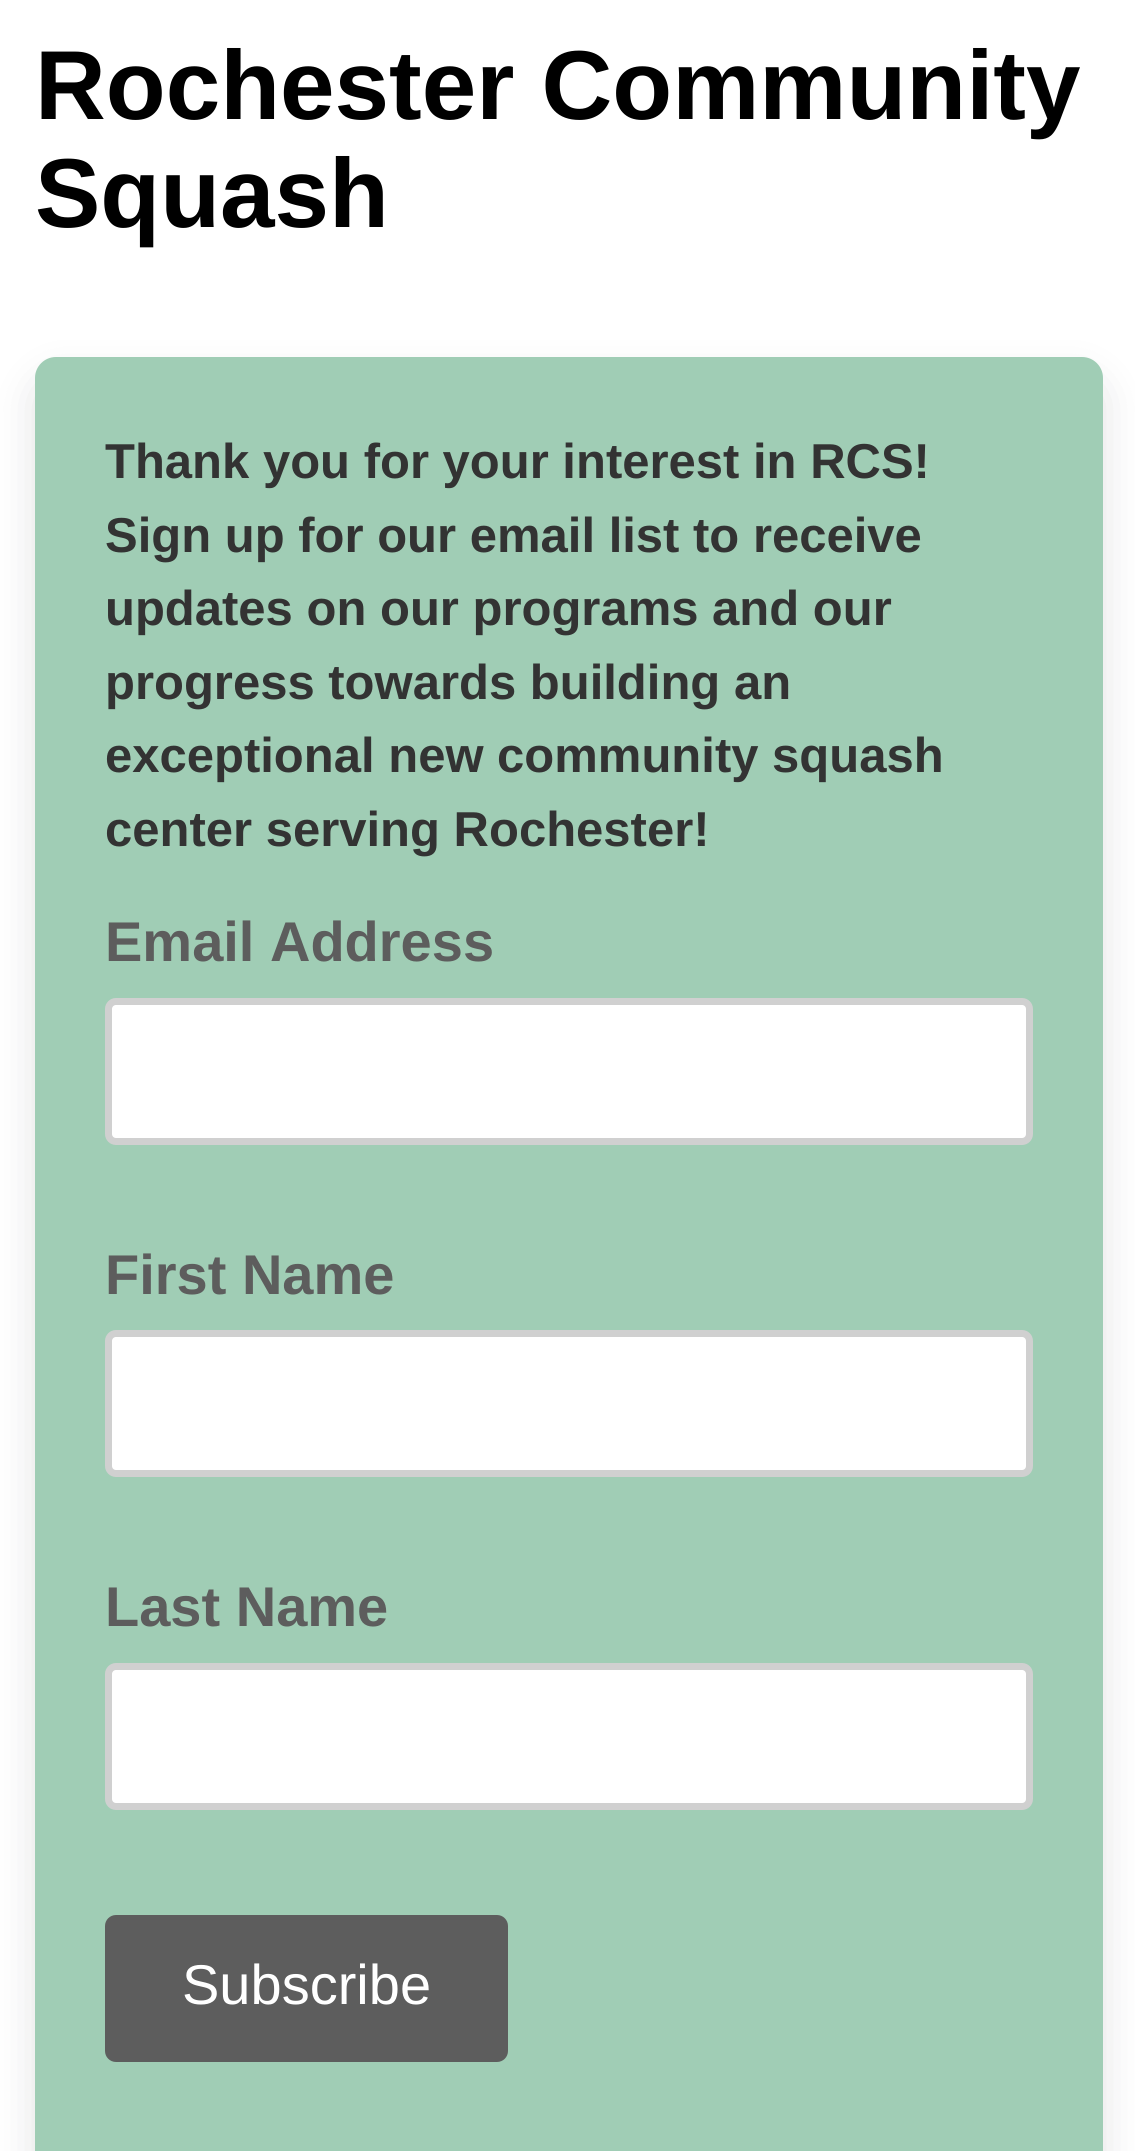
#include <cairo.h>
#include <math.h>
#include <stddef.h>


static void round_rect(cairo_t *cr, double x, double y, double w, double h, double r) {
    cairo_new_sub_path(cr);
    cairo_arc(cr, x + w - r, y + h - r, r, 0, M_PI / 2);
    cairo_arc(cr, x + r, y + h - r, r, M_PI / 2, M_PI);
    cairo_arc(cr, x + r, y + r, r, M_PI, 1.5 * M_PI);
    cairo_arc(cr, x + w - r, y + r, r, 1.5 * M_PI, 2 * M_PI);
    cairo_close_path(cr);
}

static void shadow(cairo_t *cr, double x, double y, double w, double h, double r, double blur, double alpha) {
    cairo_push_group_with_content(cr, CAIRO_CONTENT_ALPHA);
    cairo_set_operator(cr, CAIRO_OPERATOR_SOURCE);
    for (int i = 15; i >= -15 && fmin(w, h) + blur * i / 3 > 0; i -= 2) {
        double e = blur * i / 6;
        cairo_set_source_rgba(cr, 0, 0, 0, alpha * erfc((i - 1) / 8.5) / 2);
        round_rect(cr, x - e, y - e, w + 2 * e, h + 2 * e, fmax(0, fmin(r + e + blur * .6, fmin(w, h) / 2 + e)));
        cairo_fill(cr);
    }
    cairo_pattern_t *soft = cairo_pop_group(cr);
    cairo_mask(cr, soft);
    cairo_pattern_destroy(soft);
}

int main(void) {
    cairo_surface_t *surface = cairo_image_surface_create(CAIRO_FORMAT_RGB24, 1135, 2151);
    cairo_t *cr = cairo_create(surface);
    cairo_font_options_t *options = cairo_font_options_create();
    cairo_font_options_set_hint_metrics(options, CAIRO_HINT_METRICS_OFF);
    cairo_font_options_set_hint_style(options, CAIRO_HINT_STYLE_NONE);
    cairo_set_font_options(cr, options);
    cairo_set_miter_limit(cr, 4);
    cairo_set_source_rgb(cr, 1, 1, 1);
    cairo_paint(cr);
    cairo_select_font_face(cr, "Liberation Sans", CAIRO_FONT_SLANT_NORMAL, CAIRO_FONT_WEIGHT_BOLD);
    cairo_set_font_size(cr, 98);
    cairo_set_source_rgb(cr, 0, 0, 0);
    cairo_move_to(cr, 35, 119);
    cairo_show_text(cr, "Rochester Community");
    cairo_move_to(cr, 35, 227);
    cairo_show_text(cr, "Squash");
    cairo_set_source_rgb(cr, 0.051, 0.071, 0.086);
    shadow(cr, 35, 378, 1068, 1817, 21, 21, 0.12);
    cairo_set_source_rgb(cr, 0.627, 0.804, 0.71);
    round_rect(cr, 35, 357, 1068, 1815, 21);
    cairo_fill(cr);
    cairo_set_font_size(cr, 49);
    cairo_set_source_rgb(cr, 0.2, 0.2, 0.2);
    cairo_move_to(cr, 105, 478);
    cairo_show_text(cr, "Thank you for your interest in RCS!");
    cairo_move_to(cr, 105, 552);
    cairo_show_text(cr, "Sign up for our email list to receive");
    cairo_move_to(cr, 105, 625);
    cairo_show_text(cr, "updates on our programs and our");
    cairo_move_to(cr, 105, 699);
    cairo_show_text(cr, "progress towards building an");
    cairo_move_to(cr, 105, 772);
    cairo_show_text(cr, "exceptional new community squash");
    cairo_move_to(cr, 105, 846);
    cairo_show_text(cr, "center serving Rochester!");
    cairo_set_font_size(cr, 56);
    cairo_set_source_rgb(cr, 0.365, 0.365, 0.365);
    cairo_move_to(cr, 105, 961);
    cairo_show_text(cr, "Email Address");
    cairo_set_source_rgb(cr, 1, 1, 1);
    round_rect(cr, 108.5, 1001.5, 921, 140, 7.5);
    cairo_fill_preserve(cr);
    cairo_set_source_rgb(cr, 0.816, 0.816, 0.816);
    cairo_set_line_width(cr, 7);
    cairo_stroke(cr);
    cairo_set_source_rgb(cr, 0.365, 0.365, 0.365);
    cairo_move_to(cr, 105, 1294);
    cairo_show_text(cr, "First Name");
    cairo_set_source_rgb(cr, 1, 1, 1);
    round_rect(cr, 108.5, 1333.5, 921, 140, 7.5);
    cairo_fill_preserve(cr);
    cairo_set_source_rgb(cr, 0.816, 0.816, 0.816);
    cairo_stroke(cr);
    cairo_set_source_rgb(cr, 0.365, 0.365, 0.365);
    cairo_move_to(cr, 105, 1626);
    cairo_show_text(cr, "Last Name");
    cairo_set_source_rgb(cr, 1, 1, 1);
    round_rect(cr, 108.5, 1666.5, 921, 140, 7.5);
    cairo_fill_preserve(cr);
    cairo_set_source_rgb(cr, 0.816, 0.816, 0.816);
    cairo_stroke(cr);
    cairo_set_source_rgb(cr, 0.365, 0.365, 0.365);
    round_rect(cr, 105, 1915, 403, 147, 11);
    cairo_fill(cr);
    cairo_select_font_face(cr, "Liberation Sans", CAIRO_FONT_SLANT_NORMAL, CAIRO_FONT_WEIGHT_NORMAL);
    cairo_set_source_rgb(cr, 1, 1, 1);
    cairo_move_to(cr, 182, 2004);
    cairo_show_text(cr, "Subscribe");
    cairo_surface_write_to_png(surface, "page.png");
    cairo_font_options_destroy(options);
    cairo_destroy(cr);
    cairo_surface_destroy(surface);
    return 0;
}
